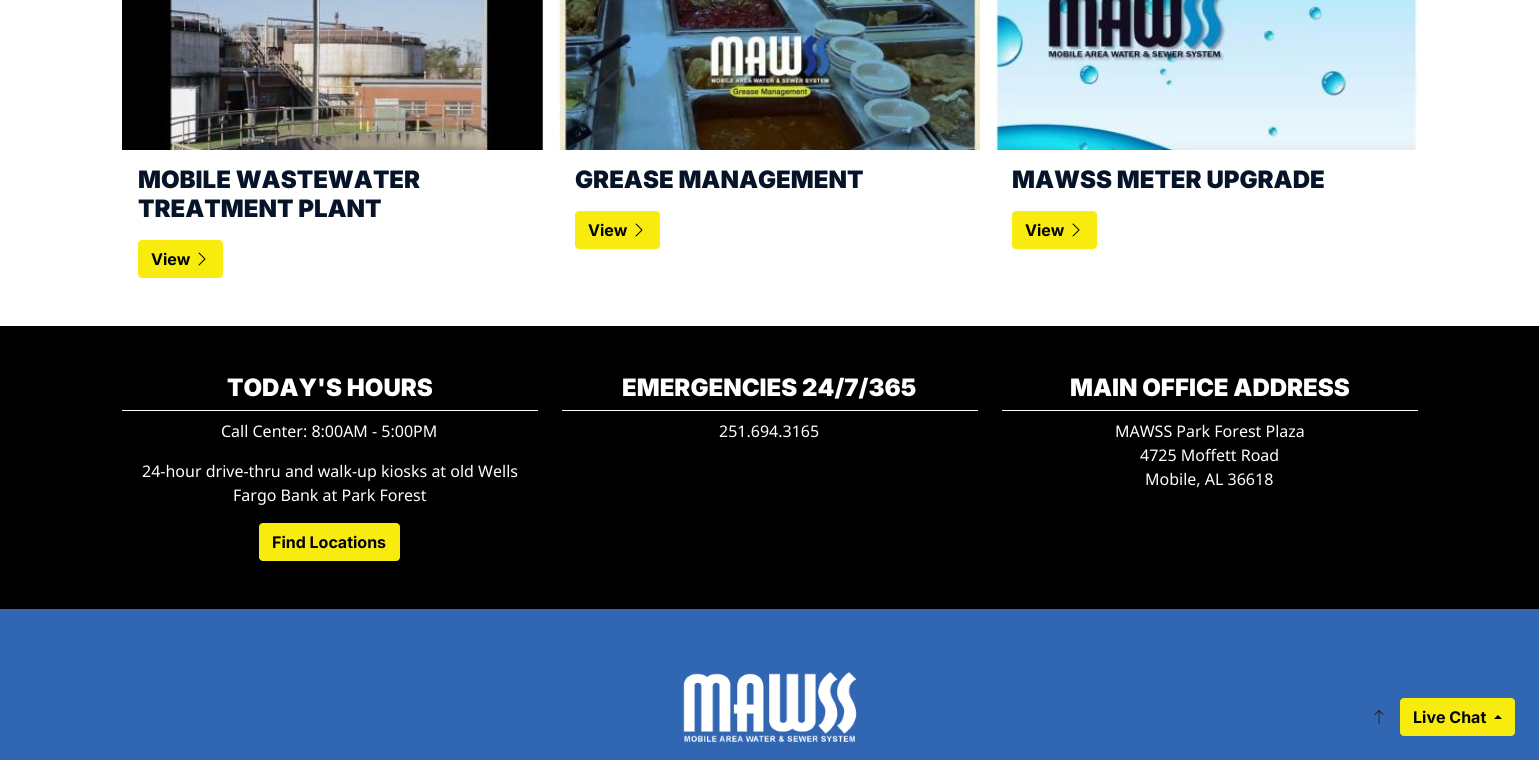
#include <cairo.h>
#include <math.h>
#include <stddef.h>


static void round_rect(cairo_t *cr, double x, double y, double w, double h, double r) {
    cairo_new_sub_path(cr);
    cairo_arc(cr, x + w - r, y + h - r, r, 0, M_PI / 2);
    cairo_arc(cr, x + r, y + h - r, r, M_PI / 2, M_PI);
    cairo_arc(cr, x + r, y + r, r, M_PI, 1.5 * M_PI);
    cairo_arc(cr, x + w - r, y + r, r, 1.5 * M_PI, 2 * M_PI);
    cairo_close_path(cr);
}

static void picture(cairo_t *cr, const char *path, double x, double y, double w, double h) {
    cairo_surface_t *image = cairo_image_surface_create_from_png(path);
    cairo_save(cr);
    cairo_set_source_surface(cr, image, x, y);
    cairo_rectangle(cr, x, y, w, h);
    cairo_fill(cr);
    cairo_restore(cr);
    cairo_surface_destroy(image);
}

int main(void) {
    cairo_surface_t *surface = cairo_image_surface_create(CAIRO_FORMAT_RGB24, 1539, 760);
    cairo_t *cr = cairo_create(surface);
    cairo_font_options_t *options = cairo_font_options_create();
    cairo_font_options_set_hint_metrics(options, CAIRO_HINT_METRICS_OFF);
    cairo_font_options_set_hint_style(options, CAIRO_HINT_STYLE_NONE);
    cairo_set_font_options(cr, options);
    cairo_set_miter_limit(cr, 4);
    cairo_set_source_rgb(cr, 1, 1, 1);
    cairo_paint(cr);
    picture(cr, "img1.png", 122, 0, 421, 150);
    cairo_select_font_face(cr, "Inter Black", CAIRO_FONT_SLANT_NORMAL, CAIRO_FONT_WEIGHT_NORMAL);
    cairo_set_font_size(cr, 24);
    cairo_set_source_rgb(cr, 0.024, 0.082, 0.161);
    cairo_move_to(cr, 138, 188);
    cairo_show_text(cr, "MOBILE WASTEWATER");
    cairo_move_to(cr, 138, 217);
    cairo_show_text(cr, "TREATMENT PLANT");
    cairo_set_source_rgb(cr, 0.969, 0.925, 0.059);
    round_rect(cr, 138.5, 240.5, 84, 37, 3.5);
    cairo_fill_preserve(cr);
    cairo_set_line_width(cr, 1);
    cairo_stroke(cr);
    cairo_select_font_face(cr, "Inter", CAIRO_FONT_SLANT_NORMAL, CAIRO_FONT_WEIGHT_BOLD);
    cairo_set_font_size(cr, 16);
    cairo_set_source_rgb(cr, 0, 0, 0);
    cairo_move_to(cr, 151, 265);
    cairo_show_text(cr, "View");
    picture(cr, "img2.png", 198, 252, 8, 14);
    picture(cr, "img3.png", 559, 0, 421, 150);
    cairo_select_font_face(cr, "Inter Black", CAIRO_FONT_SLANT_NORMAL, CAIRO_FONT_WEIGHT_NORMAL);
    cairo_set_font_size(cr, 24);
    cairo_set_source_rgb(cr, 0.024, 0.082, 0.161);
    cairo_move_to(cr, 575, 188);
    cairo_show_text(cr, "GREASE MANAGEMENT");
    cairo_set_source_rgb(cr, 0.969, 0.925, 0.059);
    round_rect(cr, 575.5, 211.5, 84, 37, 3.5);
    cairo_fill_preserve(cr);
    cairo_stroke(cr);
    cairo_select_font_face(cr, "Inter", CAIRO_FONT_SLANT_NORMAL, CAIRO_FONT_WEIGHT_BOLD);
    cairo_set_font_size(cr, 16);
    cairo_set_source_rgb(cr, 0, 0, 0);
    cairo_move_to(cr, 588, 236);
    cairo_show_text(cr, "View");
    picture(cr, "img2.png", 635, 223, 8, 14);
    picture(cr, "img4.png", 996, 0, 421, 150);
    cairo_select_font_face(cr, "Inter Black", CAIRO_FONT_SLANT_NORMAL, CAIRO_FONT_WEIGHT_NORMAL);
    cairo_set_font_size(cr, 24);
    cairo_set_source_rgb(cr, 0.024, 0.082, 0.161);
    cairo_move_to(cr, 1012, 188);
    cairo_show_text(cr, "MAWSS METER UPGRADE");
    cairo_set_source_rgb(cr, 0.969, 0.925, 0.059);
    round_rect(cr, 1012.5, 211.5, 84, 37, 3.5);
    cairo_fill_preserve(cr);
    cairo_stroke(cr);
    cairo_select_font_face(cr, "Inter", CAIRO_FONT_SLANT_NORMAL, CAIRO_FONT_WEIGHT_BOLD);
    cairo_set_font_size(cr, 16);
    cairo_set_source_rgb(cr, 0, 0, 0);
    cairo_move_to(cr, 1025, 236);
    cairo_show_text(cr, "View");
    picture(cr, "img2.png", 1072, 223, 8, 14);
    cairo_rectangle(cr, 0, 326, 1539, 283);
    cairo_fill(cr);
    cairo_set_source_rgb(cr, 1, 1, 1);
    cairo_rectangle(cr, 122, 410, 416, 1);
    cairo_fill(cr);
    cairo_select_font_face(cr, "Inter Black", CAIRO_FONT_SLANT_NORMAL, CAIRO_FONT_WEIGHT_NORMAL);
    cairo_set_font_size(cr, 24);
    cairo_move_to(cr, 227, 396);
    cairo_show_text(cr, "TODAY'S HOURS");
    cairo_select_font_face(cr, "Noto Sans", CAIRO_FONT_SLANT_NORMAL, CAIRO_FONT_WEIGHT_NORMAL);
    cairo_set_font_size(cr, 16);
    cairo_move_to(cr, 221, 437);
    cairo_show_text(cr, "Call Center: 8:00AM - 5:00PM");
    cairo_move_to(cr, 142, 477);
    cairo_show_text(cr, "24-hour drive-thru and walk-up kiosks at old Wells");
    cairo_move_to(cr, 233, 501);
    cairo_show_text(cr, "Fargo Bank at Park Forest");
    cairo_set_source_rgb(cr, 0.969, 0.925, 0.059);
    round_rect(cr, 259.5, 523.5, 140, 37, 3.5);
    cairo_fill_preserve(cr);
    cairo_stroke(cr);
    cairo_select_font_face(cr, "Inter", CAIRO_FONT_SLANT_NORMAL, CAIRO_FONT_WEIGHT_BOLD);
    cairo_set_source_rgb(cr, 0, 0, 0);
    cairo_move_to(cr, 272, 548);
    cairo_show_text(cr, "Find Locations");
    cairo_set_source_rgb(cr, 1, 1, 1);
    cairo_rectangle(cr, 562, 410, 416, 1);
    cairo_fill(cr);
    cairo_select_font_face(cr, "Inter Black", CAIRO_FONT_SLANT_NORMAL, CAIRO_FONT_WEIGHT_NORMAL);
    cairo_set_font_size(cr, 24);
    cairo_move_to(cr, 622, 396);
    cairo_show_text(cr, "EMERGENCIES 24/7/365");
    cairo_select_font_face(cr, "Noto Sans", CAIRO_FONT_SLANT_NORMAL, CAIRO_FONT_WEIGHT_NORMAL);
    cairo_set_font_size(cr, 16);
    cairo_move_to(cr, 719, 437);
    cairo_show_text(cr, "251.694.3165");
    cairo_rectangle(cr, 1002, 410, 416, 1);
    cairo_fill(cr);
    cairo_select_font_face(cr, "Inter Black", CAIRO_FONT_SLANT_NORMAL, CAIRO_FONT_WEIGHT_NORMAL);
    cairo_set_font_size(cr, 24);
    cairo_move_to(cr, 1070, 396);
    cairo_show_text(cr, "MAIN OFFICE ADDRESS");
    cairo_select_font_face(cr, "Noto Sans", CAIRO_FONT_SLANT_NORMAL, CAIRO_FONT_WEIGHT_NORMAL);
    cairo_set_font_size(cr, 16);
    cairo_move_to(cr, 1115, 437);
    cairo_show_text(cr, "MAWSS Park Forest Plaza");
    cairo_move_to(cr, 1140, 461);
    cairo_show_text(cr, "4725 Moffett Road");
    cairo_move_to(cr, 1145, 485);
    cairo_show_text(cr, "Mobile, AL 36618");
    cairo_set_source_rgb(cr, 0.192, 0.4, 0.698);
    cairo_rectangle(cr, 0, 609, 1539, 151);
    cairo_fill(cr);
    picture(cr, "img5.png", 683, 672, 174, 70);
    picture(cr, "img6.png", 1374, 710, 10, 14);
    cairo_set_source_rgb(cr, 0.969, 0.925, 0.059);
    round_rect(cr, 1400.5, 698.5, 114, 37, 3.5);
    cairo_fill_preserve(cr);
    cairo_stroke(cr);
    cairo_select_font_face(cr, "Inter", CAIRO_FONT_SLANT_NORMAL, CAIRO_FONT_WEIGHT_BOLD);
    cairo_set_source_rgb(cr, 0, 0, 0);
    cairo_move_to(cr, 1413, 723);
    cairo_show_text(cr, "Live Chat");
    cairo_new_path(cr);
    cairo_move_to(cr, 1502, 719);
    cairo_line_to(cr, 1494, 719);
    cairo_line_to(cr, 1498, 715);
    cairo_close_path(cr);
    cairo_fill(cr);
    cairo_surface_write_to_png(surface, "page.png");
    cairo_font_options_destroy(options);
    cairo_destroy(cr);
    cairo_surface_destroy(surface);
    return 0;
}
